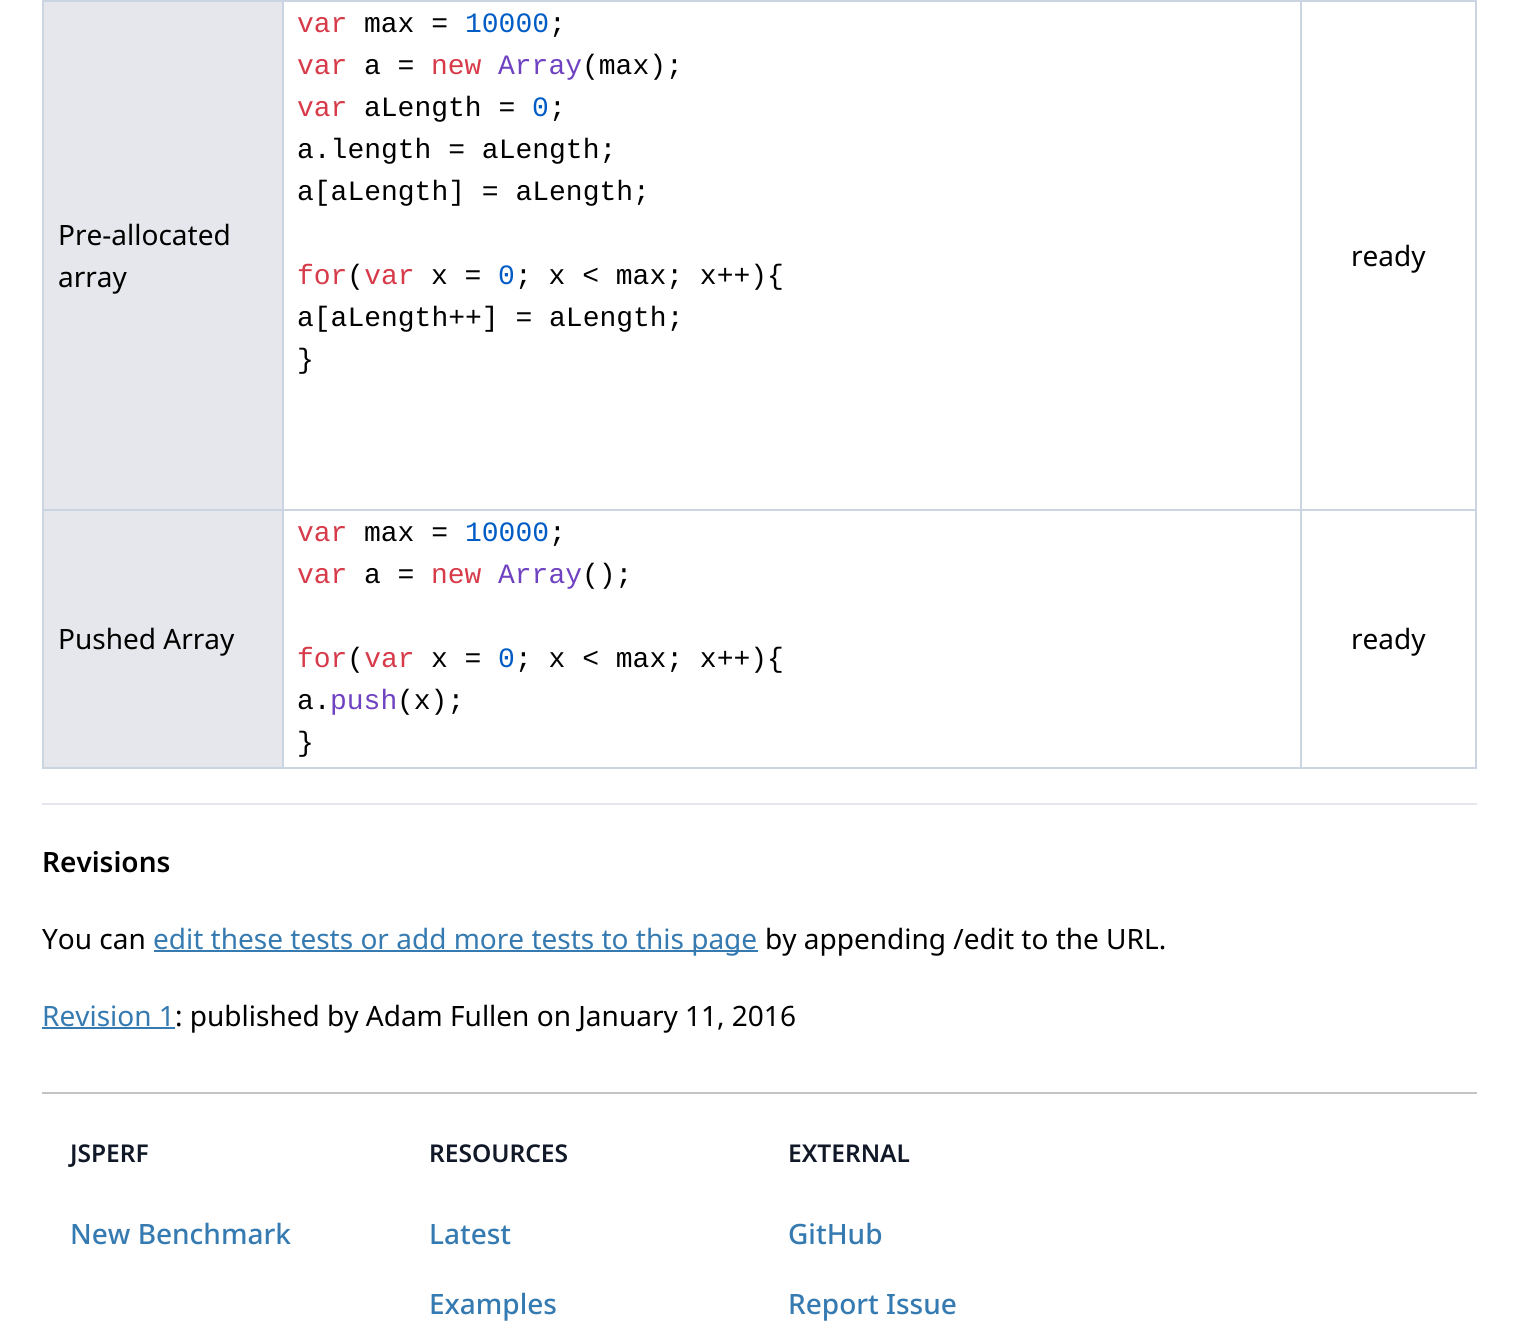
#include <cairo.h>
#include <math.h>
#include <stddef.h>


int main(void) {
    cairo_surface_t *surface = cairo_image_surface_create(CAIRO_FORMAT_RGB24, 1519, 1336);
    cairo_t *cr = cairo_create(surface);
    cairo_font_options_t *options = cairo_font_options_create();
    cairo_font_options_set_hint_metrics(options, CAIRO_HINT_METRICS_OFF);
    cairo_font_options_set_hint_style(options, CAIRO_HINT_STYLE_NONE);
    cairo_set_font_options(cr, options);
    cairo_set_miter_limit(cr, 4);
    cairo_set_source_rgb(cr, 1, 1, 1);
    cairo_paint(cr);
    cairo_set_source_rgb(cr, 0.898, 0.906, 0.922);
    cairo_rectangle(cr, 44, 2, 238, 507);
    cairo_fill(cr);
    cairo_set_source_rgb(cr, 0.796, 0.835, 0.882);
    cairo_rectangle(cr, 1300, 0, 177, 2);
    cairo_fill(cr);
    cairo_rectangle(cr, 1300, 509, 177, 2);
    cairo_fill(cr);
    cairo_rectangle(cr, 1475, 509, 2, 259);
    cairo_fill(cr);
    cairo_rectangle(cr, 1300, 767, 177, 2);
    cairo_fill(cr);
    cairo_rectangle(cr, 1300, 509, 2, 259);
    cairo_fill(cr);
    cairo_rectangle(cr, 282, 509, 1020, 2);
    cairo_fill(cr);
    cairo_rectangle(cr, 1300, 0, 2, 511);
    cairo_fill(cr);
    cairo_rectangle(cr, 282, 0, 1020, 2);
    cairo_fill(cr);
    cairo_rectangle(cr, 282, 767, 1020, 2);
    cairo_fill(cr);
    cairo_rectangle(cr, 282, 509, 2, 259);
    cairo_fill(cr);
    cairo_rectangle(cr, 42, 509, 242, 2);
    cairo_fill(cr);
    cairo_rectangle(cr, 282, 0, 2, 511);
    cairo_fill(cr);
    cairo_rectangle(cr, 42, 0, 242, 2);
    cairo_fill(cr);
    cairo_rectangle(cr, 42, 767, 242, 2);
    cairo_fill(cr);
    cairo_rectangle(cr, 42, 509, 2, 259);
    cairo_fill(cr);
    cairo_rectangle(cr, 42, 0, 2, 511);
    cairo_fill(cr);
    cairo_select_font_face(cr, "Noto Sans", CAIRO_FONT_SLANT_NORMAL, CAIRO_FONT_WEIGHT_NORMAL);
    cairo_set_font_size(cr, 28);
    cairo_set_source_rgb(cr, 0, 0, 0);
    cairo_move_to(cr, 58, 245);
    cairo_show_text(cr, "Pre-allocated");
    cairo_move_to(cr, 58, 287);
    cairo_show_text(cr, "array");
    cairo_select_font_face(cr, "Liberation Mono", CAIRO_FONT_SLANT_NORMAL, CAIRO_FONT_WEIGHT_NORMAL);
    cairo_set_source_rgb(cr, 0.843, 0.227, 0.286);
    cairo_move_to(cr, 297, 32);
    cairo_show_text(cr, "var");
    cairo_set_source_rgb(cr, 0, 0, 0);
    cairo_move_to(cr, 364, 32);
    cairo_show_text(cr, "max =");
    cairo_set_source_rgb(cr, 0, 0.361, 0.773);
    cairo_move_to(cr, 465, 32);
    cairo_show_text(cr, "10000");
    cairo_set_source_rgb(cr, 0, 0, 0);
    cairo_move_to(cr, 549, 32);
    cairo_show_text(cr, ";");
    cairo_set_source_rgb(cr, 0.843, 0.227, 0.286);
    cairo_move_to(cr, 297, 74);
    cairo_show_text(cr, "var");
    cairo_set_source_rgb(cr, 0, 0, 0);
    cairo_move_to(cr, 364, 74);
    cairo_show_text(cr, "a =");
    cairo_set_source_rgb(cr, 0.843, 0.227, 0.286);
    cairo_move_to(cr, 431, 74);
    cairo_show_text(cr, "new");
    cairo_set_source_rgb(cr, 0.435, 0.259, 0.757);
    cairo_move_to(cr, 498, 74);
    cairo_show_text(cr, "Array");
    cairo_set_source_rgb(cr, 0, 0, 0);
    cairo_move_to(cr, 582, 74);
    cairo_show_text(cr, "(max);");
    cairo_set_source_rgb(cr, 0.843, 0.227, 0.286);
    cairo_move_to(cr, 297, 116);
    cairo_show_text(cr, "var");
    cairo_set_source_rgb(cr, 0, 0, 0);
    cairo_move_to(cr, 364, 116);
    cairo_show_text(cr, "aLength =");
    cairo_set_source_rgb(cr, 0, 0.361, 0.773);
    cairo_move_to(cr, 532, 116);
    cairo_show_text(cr, "0");
    cairo_set_source_rgb(cr, 0, 0, 0);
    cairo_move_to(cr, 549, 116);
    cairo_show_text(cr, ";");
    cairo_move_to(cr, 297, 158);
    cairo_show_text(cr, "a.length = aLength;");
    cairo_move_to(cr, 297, 200);
    cairo_show_text(cr, "a[aLength] = aLength;");
    cairo_set_source_rgb(cr, 0.843, 0.227, 0.286);
    cairo_move_to(cr, 297, 284);
    cairo_show_text(cr, "for var");
    cairo_set_source_rgb(cr, 0, 0, 0);
    cairo_move_to(cr, 347, 284);
    cairo_show_text(cr, "(");
    cairo_move_to(cr, 431, 284);
    cairo_show_text(cr, "x =");
    cairo_set_source_rgb(cr, 0, 0.361, 0.773);
    cairo_move_to(cr, 498, 284);
    cairo_show_text(cr, "0");
    cairo_set_source_rgb(cr, 0, 0, 0);
    cairo_move_to(cr, 515, 284);
    cairo_show_text(cr, "; x < max; x++){");
    cairo_move_to(cr, 297, 326);
    cairo_show_text(cr, "a[aLength++] = aLength;");
    cairo_move_to(cr, 297, 368);
    cairo_show_text(cr, "}");
    cairo_set_source_rgb(cr, 0.796, 0.835, 0.882);
    cairo_rectangle(cr, 1475, 0, 2, 511);
    cairo_fill(cr);
    cairo_select_font_face(cr, "Noto Sans", CAIRO_FONT_SLANT_NORMAL, CAIRO_FONT_WEIGHT_NORMAL);
    cairo_set_source_rgb(cr, 0, 0, 0);
    cairo_move_to(cr, 1351, 266);
    cairo_show_text(cr, "ready");
    cairo_set_source_rgb(cr, 0.898, 0.906, 0.922);
    cairo_rectangle(cr, 44, 511, 238, 256);
    cairo_fill(cr);
    cairo_set_source_rgb(cr, 0, 0, 0);
    cairo_move_to(cr, 58, 649);
    cairo_show_text(cr, "Pushed Array");
    cairo_select_font_face(cr, "Liberation Mono", CAIRO_FONT_SLANT_NORMAL, CAIRO_FONT_WEIGHT_NORMAL);
    cairo_set_source_rgb(cr, 0.843, 0.227, 0.286);
    cairo_move_to(cr, 297, 541);
    cairo_show_text(cr, "var");
    cairo_set_source_rgb(cr, 0, 0, 0);
    cairo_move_to(cr, 364, 541);
    cairo_show_text(cr, "max =");
    cairo_set_source_rgb(cr, 0, 0.361, 0.773);
    cairo_move_to(cr, 465, 541);
    cairo_show_text(cr, "10000");
    cairo_set_source_rgb(cr, 0, 0, 0);
    cairo_move_to(cr, 549, 541);
    cairo_show_text(cr, ";");
    cairo_set_source_rgb(cr, 0.843, 0.227, 0.286);
    cairo_move_to(cr, 297, 583);
    cairo_show_text(cr, "var");
    cairo_set_source_rgb(cr, 0, 0, 0);
    cairo_move_to(cr, 364, 583);
    cairo_show_text(cr, "a =");
    cairo_set_source_rgb(cr, 0.843, 0.227, 0.286);
    cairo_move_to(cr, 431, 583);
    cairo_show_text(cr, "new");
    cairo_set_source_rgb(cr, 0.435, 0.259, 0.757);
    cairo_move_to(cr, 498, 583);
    cairo_show_text(cr, "Array");
    cairo_set_source_rgb(cr, 0, 0, 0);
    cairo_move_to(cr, 582, 583);
    cairo_show_text(cr, "();");
    cairo_set_source_rgb(cr, 0.843, 0.227, 0.286);
    cairo_move_to(cr, 297, 667);
    cairo_show_text(cr, "for var");
    cairo_set_source_rgb(cr, 0, 0, 0);
    cairo_move_to(cr, 347, 667);
    cairo_show_text(cr, "(");
    cairo_move_to(cr, 431, 667);
    cairo_show_text(cr, "x =");
    cairo_set_source_rgb(cr, 0, 0.361, 0.773);
    cairo_move_to(cr, 498, 667);
    cairo_show_text(cr, "0");
    cairo_set_source_rgb(cr, 0, 0, 0);
    cairo_move_to(cr, 515, 667);
    cairo_show_text(cr, "; x < max; x++){");
    cairo_move_to(cr, 297, 709);
    cairo_show_text(cr, "a.");
    cairo_set_source_rgb(cr, 0.435, 0.259, 0.757);
    cairo_move_to(cr, 330, 709);
    cairo_show_text(cr, "push");
    cairo_set_source_rgb(cr, 0, 0, 0);
    cairo_move_to(cr, 397, 709);
    cairo_show_text(cr, "(x);");
    cairo_move_to(cr, 297, 751);
    cairo_show_text(cr, "}");
    cairo_select_font_face(cr, "Noto Sans", CAIRO_FONT_SLANT_NORMAL, CAIRO_FONT_WEIGHT_NORMAL);
    cairo_move_to(cr, 1351, 649);
    cairo_show_text(cr, "ready");
    cairo_set_source_rgb(cr, 0.898, 0.906, 0.922);
    cairo_rectangle(cr, 42, 803, 1435, 2);
    cairo_fill(cr);
    cairo_select_font_face(cr, "Noto Sans SemiBold", CAIRO_FONT_SLANT_NORMAL, CAIRO_FONT_WEIGHT_NORMAL);
    cairo_set_source_rgb(cr, 0, 0, 0);
    cairo_move_to(cr, 42, 872);
    cairo_show_text(cr, "Revisions");
    cairo_select_font_face(cr, "Noto Sans", CAIRO_FONT_SLANT_NORMAL, CAIRO_FONT_WEIGHT_NORMAL);
    cairo_move_to(cr, 42, 949);
    cairo_show_text(cr, "You can");
    cairo_set_source_rgb(cr, 0.208, 0.478, 0.69);
    cairo_rectangle(cr, 154, 950, 604, 2);
    cairo_fill(cr);
    cairo_move_to(cr, 153, 949);
    cairo_show_text(cr, "edit these tests or add more tests to this page");
    cairo_set_source_rgb(cr, 0, 0, 0);
    cairo_move_to(cr, 765, 949);
    cairo_show_text(cr, "by appending /edit to the URL.");
    cairo_set_source_rgb(cr, 0.208, 0.478, 0.69);
    cairo_move_to(cr, 42, 1026);
    cairo_show_text(cr, "Revision 1");
    cairo_rectangle(cr, 42, 1027, 133, 2);
    cairo_fill(cr);
    cairo_set_source_rgb(cr, 0, 0, 0);
    cairo_move_to(cr, 175, 1026);
    cairo_show_text(cr, ": published by Adam Fullen on January 11, 2016");
    cairo_set_source_rgb(cr, 0.769, 0.769, 0.769);
    cairo_rectangle(cr, 42, 1092, 1435, 2);
    cairo_fill(cr);
    cairo_select_font_face(cr, "Noto Sans SemiBold", CAIRO_FONT_SLANT_NORMAL, CAIRO_FONT_WEIGHT_NORMAL);
    cairo_set_font_size(cr, 24.5);
    cairo_set_source_rgb(cr, 0.067, 0.094, 0.153);
    cairo_move_to(cr, 70, 1162);
    cairo_show_text(cr, "JSPERF");
    cairo_select_font_face(cr, "Noto Sans Medium", CAIRO_FONT_SLANT_NORMAL, CAIRO_FONT_WEIGHT_NORMAL);
    cairo_set_font_size(cr, 28);
    cairo_set_source_rgb(cr, 0.208, 0.478, 0.69);
    cairo_move_to(cr, 70, 1244);
    cairo_show_text(cr, "New Benchmark");
    cairo_select_font_face(cr, "Noto Sans SemiBold", CAIRO_FONT_SLANT_NORMAL, CAIRO_FONT_WEIGHT_NORMAL);
    cairo_set_font_size(cr, 24.5);
    cairo_set_source_rgb(cr, 0.067, 0.094, 0.153);
    cairo_move_to(cr, 429, 1162);
    cairo_show_text(cr, "RESOURCES");
    cairo_select_font_face(cr, "Noto Sans Medium", CAIRO_FONT_SLANT_NORMAL, CAIRO_FONT_WEIGHT_NORMAL);
    cairo_set_font_size(cr, 28);
    cairo_set_source_rgb(cr, 0.208, 0.478, 0.69);
    cairo_move_to(cr, 429, 1244);
    cairo_show_text(cr, "Latest");
    cairo_move_to(cr, 429, 1314);
    cairo_show_text(cr, "Examples");
    cairo_select_font_face(cr, "Noto Sans SemiBold", CAIRO_FONT_SLANT_NORMAL, CAIRO_FONT_WEIGHT_NORMAL);
    cairo_set_font_size(cr, 24.5);
    cairo_set_source_rgb(cr, 0.067, 0.094, 0.153);
    cairo_move_to(cr, 788, 1162);
    cairo_show_text(cr, "EXTERNAL");
    cairo_select_font_face(cr, "Noto Sans Medium", CAIRO_FONT_SLANT_NORMAL, CAIRO_FONT_WEIGHT_NORMAL);
    cairo_set_font_size(cr, 28);
    cairo_set_source_rgb(cr, 0.208, 0.478, 0.69);
    cairo_move_to(cr, 788, 1244);
    cairo_show_text(cr, "GitHub");
    cairo_move_to(cr, 788, 1314);
    cairo_show_text(cr, "Report Issue");
    cairo_surface_write_to_png(surface, "page.png");
    cairo_font_options_destroy(options);
    cairo_destroy(cr);
    cairo_surface_destroy(surface);
    return 0;
}
